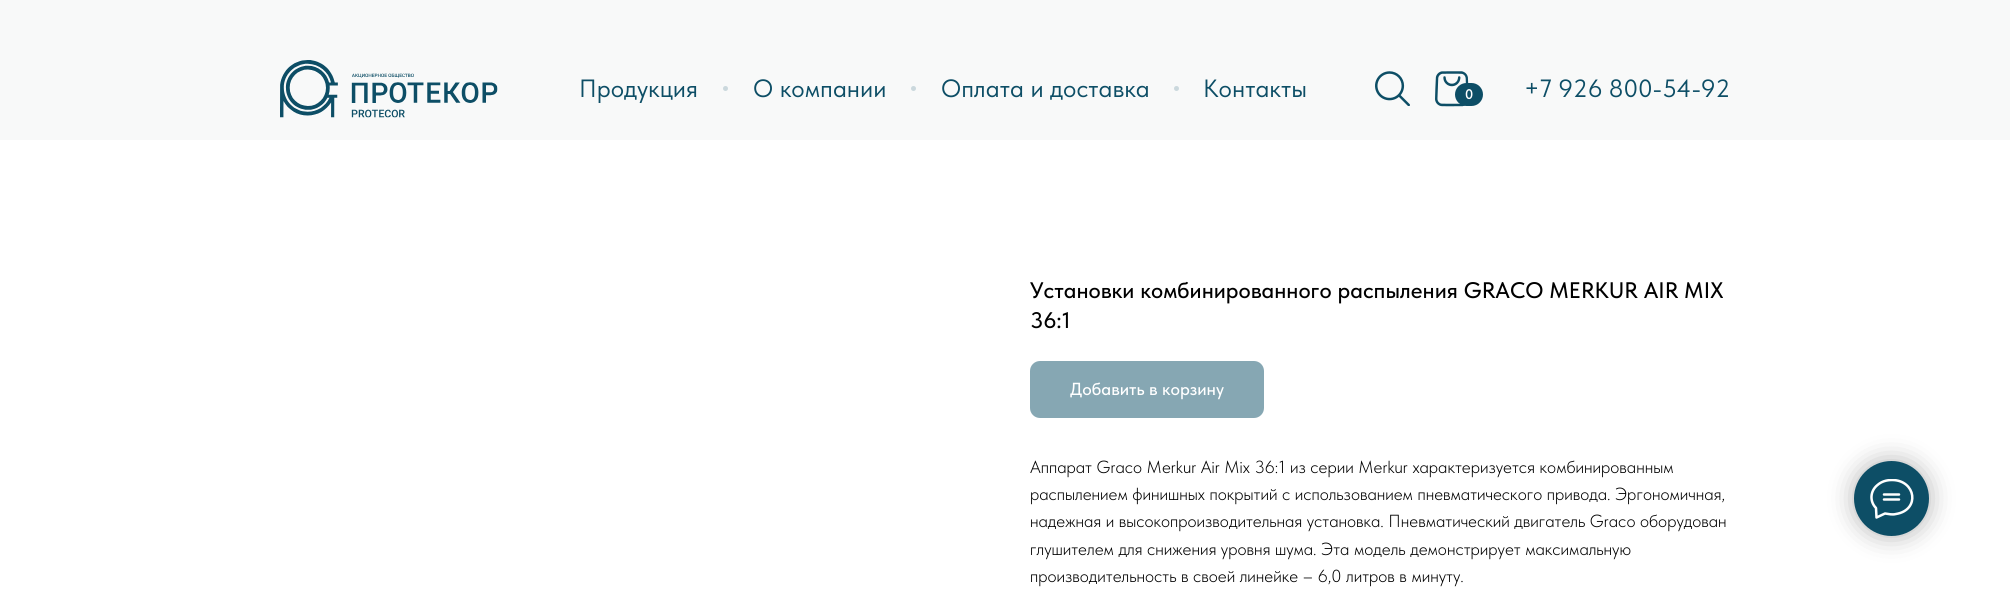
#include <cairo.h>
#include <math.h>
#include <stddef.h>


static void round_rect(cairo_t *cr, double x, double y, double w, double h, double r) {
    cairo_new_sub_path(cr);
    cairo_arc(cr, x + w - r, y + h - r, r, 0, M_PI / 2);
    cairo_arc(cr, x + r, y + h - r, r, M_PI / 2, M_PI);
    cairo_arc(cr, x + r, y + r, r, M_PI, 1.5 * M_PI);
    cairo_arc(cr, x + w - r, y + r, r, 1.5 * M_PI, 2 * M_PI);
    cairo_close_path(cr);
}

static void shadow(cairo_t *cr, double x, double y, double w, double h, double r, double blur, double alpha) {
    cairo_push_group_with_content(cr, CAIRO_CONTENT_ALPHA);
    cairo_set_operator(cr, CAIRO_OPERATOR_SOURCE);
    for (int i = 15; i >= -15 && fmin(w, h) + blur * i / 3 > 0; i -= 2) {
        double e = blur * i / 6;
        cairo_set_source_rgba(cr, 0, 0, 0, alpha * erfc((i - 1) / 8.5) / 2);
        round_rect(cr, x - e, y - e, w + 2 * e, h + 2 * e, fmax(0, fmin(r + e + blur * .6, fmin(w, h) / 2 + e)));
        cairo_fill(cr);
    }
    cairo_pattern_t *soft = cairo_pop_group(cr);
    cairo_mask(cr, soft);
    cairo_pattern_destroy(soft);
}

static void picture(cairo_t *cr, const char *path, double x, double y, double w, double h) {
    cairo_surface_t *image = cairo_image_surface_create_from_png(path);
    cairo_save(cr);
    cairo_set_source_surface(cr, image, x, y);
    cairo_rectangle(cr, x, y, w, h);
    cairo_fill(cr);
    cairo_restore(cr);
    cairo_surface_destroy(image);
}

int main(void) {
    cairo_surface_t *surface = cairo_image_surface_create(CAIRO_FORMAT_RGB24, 2010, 598);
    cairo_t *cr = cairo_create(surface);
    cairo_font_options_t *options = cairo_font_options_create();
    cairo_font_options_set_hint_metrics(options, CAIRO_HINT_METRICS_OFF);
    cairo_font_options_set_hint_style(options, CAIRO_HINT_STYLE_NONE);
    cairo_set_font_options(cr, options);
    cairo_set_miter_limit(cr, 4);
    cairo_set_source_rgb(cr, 1, 1, 1);
    cairo_paint(cr);
    cairo_set_source_rgb(cr, 0.969, 0.973, 0.976);
    cairo_rectangle(cr, 0, 0, 2010, 140);
    cairo_fill(cr);
    picture(cr, "img1.png", 280, 60, 218, 58);
    cairo_select_font_face(cr, "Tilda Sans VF", CAIRO_FONT_SLANT_NORMAL, CAIRO_FONT_WEIGHT_NORMAL);
    cairo_set_font_size(cr, 25);
    cairo_set_source_rgb(cr, 0.051, 0.306, 0.4);
    cairo_move_to(cr, 579, 97);
    cairo_show_text(cr, "Продукция");
    cairo_set_source_rgb(cr, 0.796, 0.847, 0.867);
    cairo_new_path(cr);
    cairo_arc(cr, 725.5, 88.5, 2.5, 0, 2 * M_PI);
    cairo_fill(cr);
    cairo_set_source_rgb(cr, 0.051, 0.306, 0.4);
    cairo_move_to(cr, 753, 97);
    cairo_show_text(cr, "О компании");
    cairo_set_source_rgb(cr, 0.796, 0.847, 0.867);
    cairo_new_path(cr);
    cairo_arc(cr, 913.5, 88.5, 2.5, 0, 2 * M_PI);
    cairo_fill(cr);
    cairo_set_source_rgb(cr, 0.051, 0.306, 0.4);
    cairo_move_to(cr, 941, 97);
    cairo_show_text(cr, "Оплата и доставка");
    cairo_set_source_rgb(cr, 0.796, 0.847, 0.867);
    cairo_new_path(cr);
    cairo_arc(cr, 1176.5, 88.5, 2.5, 0, 2 * M_PI);
    cairo_fill(cr);
    cairo_set_source_rgb(cr, 0.051, 0.306, 0.4);
    cairo_move_to(cr, 1203, 97);
    cairo_show_text(cr, "Контакты");
    picture(cr, "img2.png", 1375, 71, 35, 35);
    picture(cr, "img3.png", 1435, 71, 34, 36);
    cairo_move_to(cr, 1524, 97);
    cairo_show_text(cr, "+7 926 800-54-92");
    round_rect(cr, 1455, 83, 28, 23, 11.5);
    cairo_fill(cr);
    cairo_select_font_face(cr, "Tilda Sans VF SemiBold", CAIRO_FONT_SLANT_NORMAL, CAIRO_FONT_WEIGHT_NORMAL);
    cairo_set_font_size(cr, 14);
    cairo_set_source_rgb(cr, 1, 1, 1);
    cairo_move_to(cr, 1465, 99);
    cairo_show_text(cr, "0");
    cairo_select_font_face(cr, "Tilda Sans VF Medium", CAIRO_FONT_SLANT_NORMAL, CAIRO_FONT_WEIGHT_NORMAL);
    cairo_set_font_size(cr, 22.5);
    cairo_set_source_rgb(cr, 0, 0, 0);
    cairo_move_to(cr, 1030, 298);
    cairo_show_text(cr, "Установки комбинированного распыления GRACO MERKUR AIR MIX");
    cairo_move_to(cr, 1030, 328);
    cairo_show_text(cr, "36:1");
    cairo_set_source_rgb(cr, 0.525, 0.655, 0.702);
    round_rect(cr, 1030, 361, 234, 57, 10);
    cairo_fill(cr);
    cairo_set_font_size(cr, 17.5);
    cairo_set_source_rgb(cr, 1, 1, 1);
    cairo_move_to(cr, 1070, 395);
    cairo_show_text(cr, "Добавить в корзину");
    cairo_select_font_face(cr, "Tilda Sans VF Light", CAIRO_FONT_SLANT_NORMAL, CAIRO_FONT_WEIGHT_NORMAL);
    cairo_set_source_rgb(cr, 0, 0, 0);
    cairo_move_to(cr, 1030, 473);
    cairo_show_text(cr, "Аппарат Graco Merkur Air Mix 36:1 из серии Merkur характеризуется комбинированным");
    cairo_move_to(cr, 1030, 500);
    cairo_show_text(cr, "распылением финишных покрытий с использованием пневматического привода. Эргономичная,");
    cairo_move_to(cr, 1030, 527);
    cairo_show_text(cr, "надежная и высокопроизводительная установка. Пневматический двигатель Graco оборудован");
    cairo_move_to(cr, 1030, 555);
    cairo_show_text(cr, "глушителем для снижения уровня шума. Эта модель демонстрирует максимальную");
    cairo_move_to(cr, 1030, 582);
    cairo_show_text(cr, "производительность в своей линейке – 6,0 литров в минуту.");
    cairo_set_source_rgb(cr, 0, 0, 0);
    shadow(cr, 1854, 461, 75, 75, 37.5, 12.5, 0.3);
    cairo_set_source_rgb(cr, 0.051, 0.306, 0.4);
    cairo_arc(cr, 1891.5, 498.5, 37.5, 0, 2 * M_PI);
    cairo_fill(cr);
    cairo_save(cr);
    cairo_rectangle(cr, 1870, 479, 44, 40);
    cairo_clip(cr);
    cairo_new_path(cr);
    cairo_move_to(cr, 1884, 494.5);
    cairo_line_to(cr, 1899, 494.5);
    cairo_move_to(cr, 1884, 499.5);
    cairo_line_to(cr, 1899, 499.5);
    cairo_move_to(cr, 1876, 508);
    cairo_curve_to(cr, 1869.5, 501.5, 1870, 491, 1877.5, 485);
    cairo_curve_to(cr, 1881.5, 481.5, 1886.5, 480, 1892, 480);
    cairo_curve_to(cr, 1916, 480, 1920.5, 510, 1896, 514);
    cairo_curve_to(cr, 1892, 515, 1889, 514, 1885, 513.5);
    cairo_line_to(cr, 1876.5, 517.5);
    cairo_close_path(cr);
    cairo_set_source_rgb(cr, 1, 1, 1);
    cairo_set_line_width(cr, 2.5);
    cairo_set_line_cap(cr, CAIRO_LINE_CAP_ROUND);
    cairo_set_line_join(cr, CAIRO_LINE_JOIN_ROUND);
    cairo_stroke(cr);
    cairo_restore(cr);
    cairo_surface_write_to_png(surface, "page.png");
    cairo_font_options_destroy(options);
    cairo_destroy(cr);
    cairo_surface_destroy(surface);
    return 0;
}
